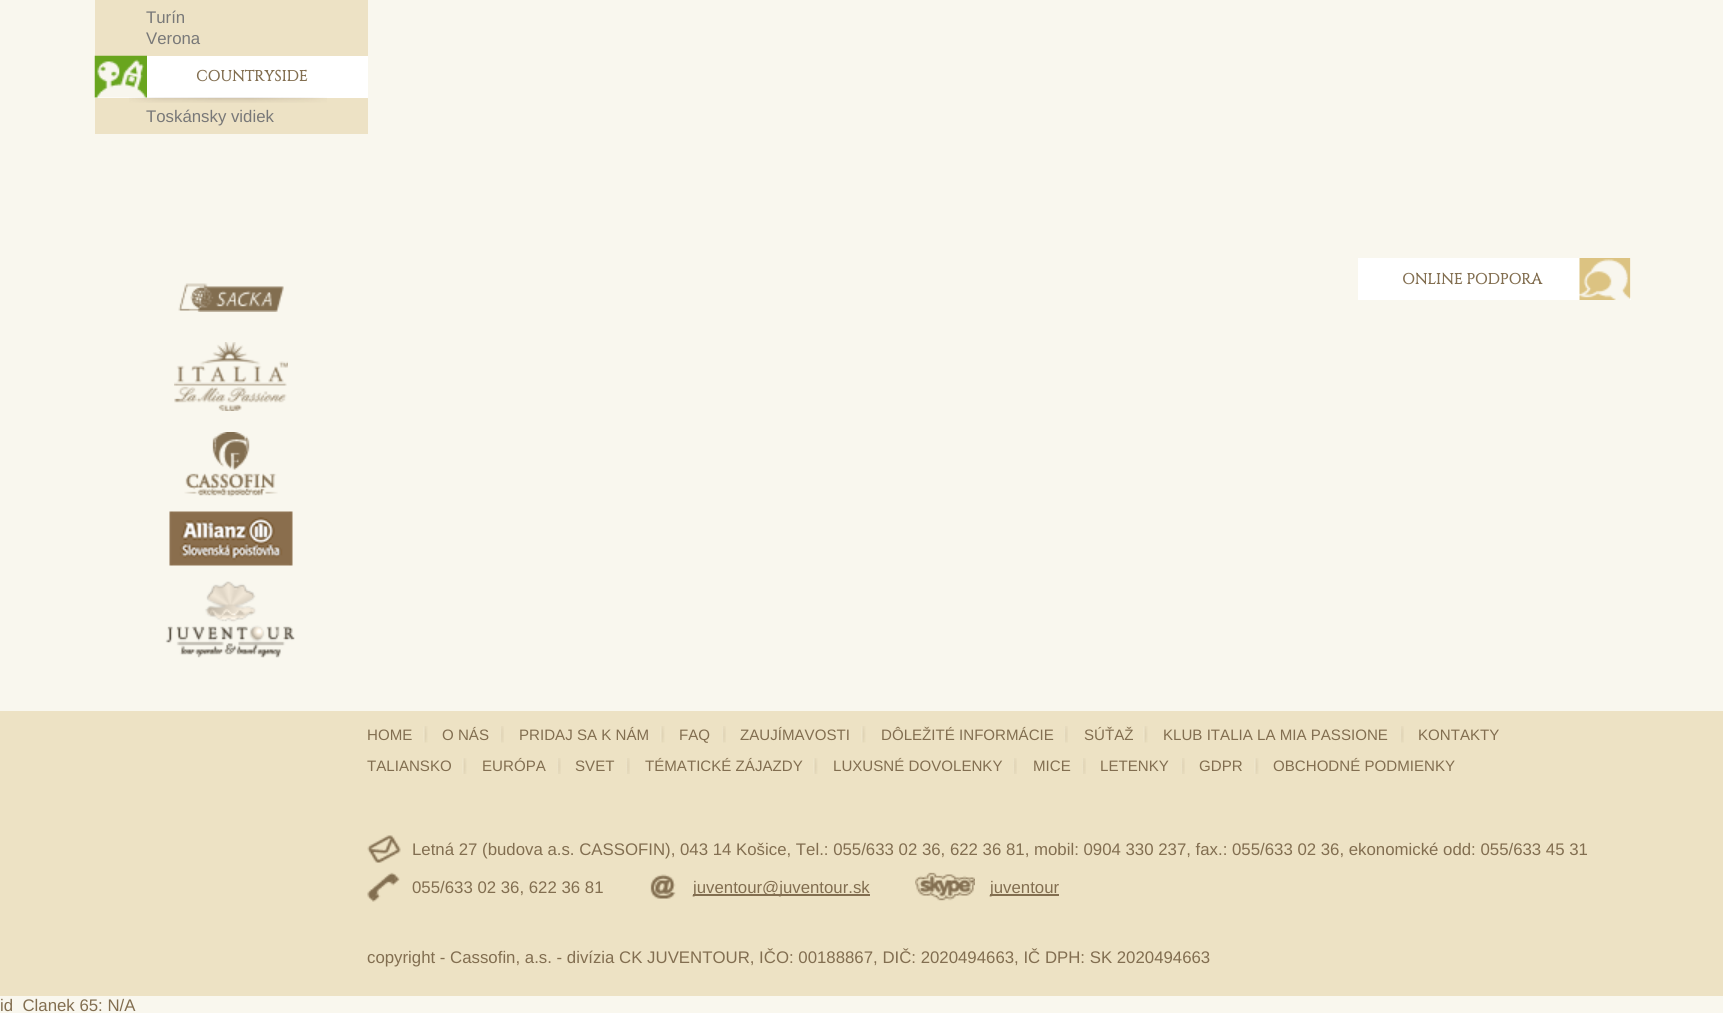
#include <cairo.h>
#include <math.h>
#include <stddef.h>


static void picture(cairo_t *cr, const char *path, double x, double y, double w, double h) {
    cairo_surface_t *image = cairo_image_surface_create_from_png(path);
    cairo_save(cr);
    cairo_set_source_surface(cr, image, x, y);
    cairo_rectangle(cr, x, y, w, h);
    cairo_fill(cr);
    cairo_restore(cr);
    cairo_surface_destroy(image);
}

int main(void) {
    cairo_surface_t *surface = cairo_image_surface_create(CAIRO_FORMAT_RGB24, 1723, 1013);
    cairo_t *cr = cairo_create(surface);
    cairo_font_options_t *options = cairo_font_options_create();
    cairo_font_options_set_hint_metrics(options, CAIRO_HINT_METRICS_OFF);
    cairo_font_options_set_hint_style(options, CAIRO_HINT_STYLE_NONE);
    cairo_set_font_options(cr, options);
    cairo_set_miter_limit(cr, 4);
    cairo_set_source_rgb(cr, 0.973, 0.965, 0.933);
    cairo_paint(cr);
    cairo_set_source_rgb(cr, 0.929, 0.886, 0.773);
    cairo_rectangle(cr, 95, 0, 273, 56);
    cairo_fill(cr);
    cairo_select_font_face(cr, "Liberation Sans", CAIRO_FONT_SLANT_NORMAL, CAIRO_FONT_WEIGHT_NORMAL);
    cairo_set_font_size(cr, 16.8);
    cairo_set_source_rgb(cr, 0.471, 0.471, 0.471);
    cairo_move_to(cr, 146, 23);
    cairo_show_text(cr, "Turín");
    cairo_move_to(cr, 146, 44);
    cairo_show_text(cr, "Verona");
    cairo_set_source_rgb(cr, 0.929, 0.886, 0.773);
    cairo_rectangle(cr, 95, 98, 273, 36);
    cairo_fill(cr);
    cairo_set_source_rgb(cr, 1, 1, 1);
    cairo_rectangle(cr, 95, 56, 273, 42);
    cairo_fill(cr);
    picture(cr, "img1.png", 94, 55, 53, 43);
    cairo_select_font_face(cr, "Cinzel", CAIRO_FONT_SLANT_NORMAL, CAIRO_FONT_WEIGHT_BOLD);
    cairo_set_font_size(cr, 15.1);
    cairo_set_source_rgb(cr, 0.51, 0.431, 0.314);
    cairo_move_to(cr, 196, 81);
    cairo_show_text(cr, "COUNTRYSIDE");
    picture(cr, "img2.png", 129, 97, 198, 6);
    cairo_select_font_face(cr, "Liberation Sans", CAIRO_FONT_SLANT_NORMAL, CAIRO_FONT_WEIGHT_NORMAL);
    cairo_set_font_size(cr, 16.8);
    cairo_set_source_rgb(cr, 0.471, 0.471, 0.471);
    cairo_move_to(cr, 146, 122);
    cairo_show_text(cr, "Toskánsky vidiek");
    picture(cr, "img3.png", 178, 283, 106, 29);
    picture(cr, "img4.png", 174, 342, 114, 69);
    picture(cr, "img5.png", 184, 432, 94, 65);
    picture(cr, "img6.png", 169, 511, 124, 55);
    picture(cr, "img7.png", 165, 581, 130, 77);
    cairo_set_source_rgb(cr, 1, 1, 1);
    cairo_rectangle(cr, 1358, 258, 273, 42);
    cairo_fill(cr);
    picture(cr, "img8.png", 1579, 258, 52, 42);
    cairo_select_font_face(cr, "Cinzel", CAIRO_FONT_SLANT_NORMAL, CAIRO_FONT_WEIGHT_BOLD);
    cairo_set_font_size(cr, 15.1);
    cairo_set_source_rgb(cr, 0.51, 0.431, 0.314);
    cairo_move_to(cr, 1402, 284);
    cairo_show_text(cr, "ONLINE PODPORA");
    cairo_set_source_rgb(cr, 0.929, 0.886, 0.769);
    cairo_rectangle(cr, 0, 711, 1723, 285);
    cairo_fill(cr);
    picture(cr, "img9.png", 423, 726, 5, 17);
    cairo_select_font_face(cr, "Liberation Sans", CAIRO_FONT_SLANT_NORMAL, CAIRO_FONT_WEIGHT_NORMAL);
    cairo_set_source_rgb(cr, 0.51, 0.431, 0.314);
    cairo_move_to(cr, 367, 740);
    cairo_show_text(cr, "HOME");
    picture(cr, "img10.png", 500, 726, 4, 17);
    cairo_move_to(cr, 442, 740);
    cairo_show_text(cr, "O NÁS");
    picture(cr, "img11.png", 660, 726, 5, 17);
    cairo_move_to(cr, 519, 740);
    cairo_show_text(cr, "PRIDAJ SA K NÁM");
    picture(cr, "img12.png", 722, 726, 4, 17);
    cairo_move_to(cr, 679, 740);
    cairo_show_text(cr, "FAQ");
    picture(cr, "img11.png", 861, 726, 5, 17);
    cairo_move_to(cr, 740, 740);
    cairo_show_text(cr, "ZAUJÍMAVOSTI");
    picture(cr, "img10.png", 1064, 726, 4, 17);
    cairo_move_to(cr, 881, 740);
    cairo_show_text(cr, "DÔLEŽITÉ INFORMÁCIE");
    picture(cr, "img9.png", 1143, 726, 5, 17);
    cairo_move_to(cr, 1084, 740);
    cairo_show_text(cr, "SÚŤAŽ");
    picture(cr, "img12.png", 1400, 726, 4, 17);
    cairo_move_to(cr, 1163, 740);
    cairo_show_text(cr, "KLUB ITALIA LA MIA PASSIONE");
    cairo_move_to(cr, 1418, 740);
    cairo_show_text(cr, "KONTAKTY");
    picture(cr, "img13.png", 462, 758, 5, 16);
    cairo_move_to(cr, 367, 771);
    cairo_show_text(cr, "TALIANSKO");
    picture(cr, "img14.png", 557, 758, 4, 16);
    cairo_move_to(cr, 482, 771);
    cairo_show_text(cr, "EURÓPA");
    picture(cr, "img14.png", 626, 758, 4, 16);
    cairo_move_to(cr, 575, 771);
    cairo_show_text(cr, "SVET");
    picture(cr, "img15.png", 813, 758, 5, 16);
    cairo_move_to(cr, 645, 771);
    cairo_show_text(cr, "TÉMATICKÉ ZÁJAZDY");
    picture(cr, "img16.png", 1013, 758, 4, 16);
    cairo_move_to(cr, 833, 771);
    cairo_show_text(cr, "LUXUSNÉ DOVOLENKY");
    picture(cr, "img16.png", 1082, 758, 4, 16);
    cairo_move_to(cr, 1033, 771);
    cairo_show_text(cr, "MICE");
    picture(cr, "img14.png", 1181, 758, 4, 16);
    cairo_move_to(cr, 1100, 771);
    cairo_show_text(cr, "LETENKY");
    picture(cr, "img13.png", 1254, 758, 5, 16);
    cairo_move_to(cr, 1199, 771);
    cairo_show_text(cr, "GDPR");
    cairo_move_to(cr, 1273, 771);
    cairo_show_text(cr, "OBCHODNÉ PODMIENKY");
    picture(cr, "img17.png", 367, 835, 34, 28);
    cairo_set_font_size(cr, 16.8);
    cairo_move_to(cr, 412, 855);
    cairo_show_text(cr, "Letná 27 (budova a.s. CASSOFIN), 043 14 Košice, Tel.: 055/633 02 36, 622 36 81, mobil: 0904 330 237, fax.: 055/633 02 36, ekonomické odd: 055/633 45 31");
    picture(cr, "img18.png", 367, 872, 33, 30);
    cairo_move_to(cr, 412, 893);
    cairo_show_text(cr, "055/633 02 36, 622 36 81");
    picture(cr, "img19.png", 650, 874, 26, 25);
    cairo_rectangle(cr, 693, 894, 177, 2);
    cairo_fill(cr);
    cairo_move_to(cr, 693, 893);
    cairo_show_text(cr, "juventour@juventour.sk");
    picture(cr, "img20.png", 915, 872, 60, 29);
    cairo_rectangle(cr, 990, 894, 69, 2);
    cairo_fill(cr);
    cairo_move_to(cr, 990, 893);
    cairo_show_text(cr, "juventour");
    cairo_move_to(cr, 367, 963);
    cairo_show_text(cr, "copyright - Cassofin, a.s. - divízia CK JUVENTOUR, IČO: 00188867, DIČ: 2020494663, IČ DPH: SK 2020494663");
    cairo_move_to(cr, 0, 1011);
    cairo_show_text(cr, "id_Clanek 65: N/A");
    cairo_surface_write_to_png(surface, "page.png");
    cairo_font_options_destroy(options);
    cairo_destroy(cr);
    cairo_surface_destroy(surface);
    return 0;
}
